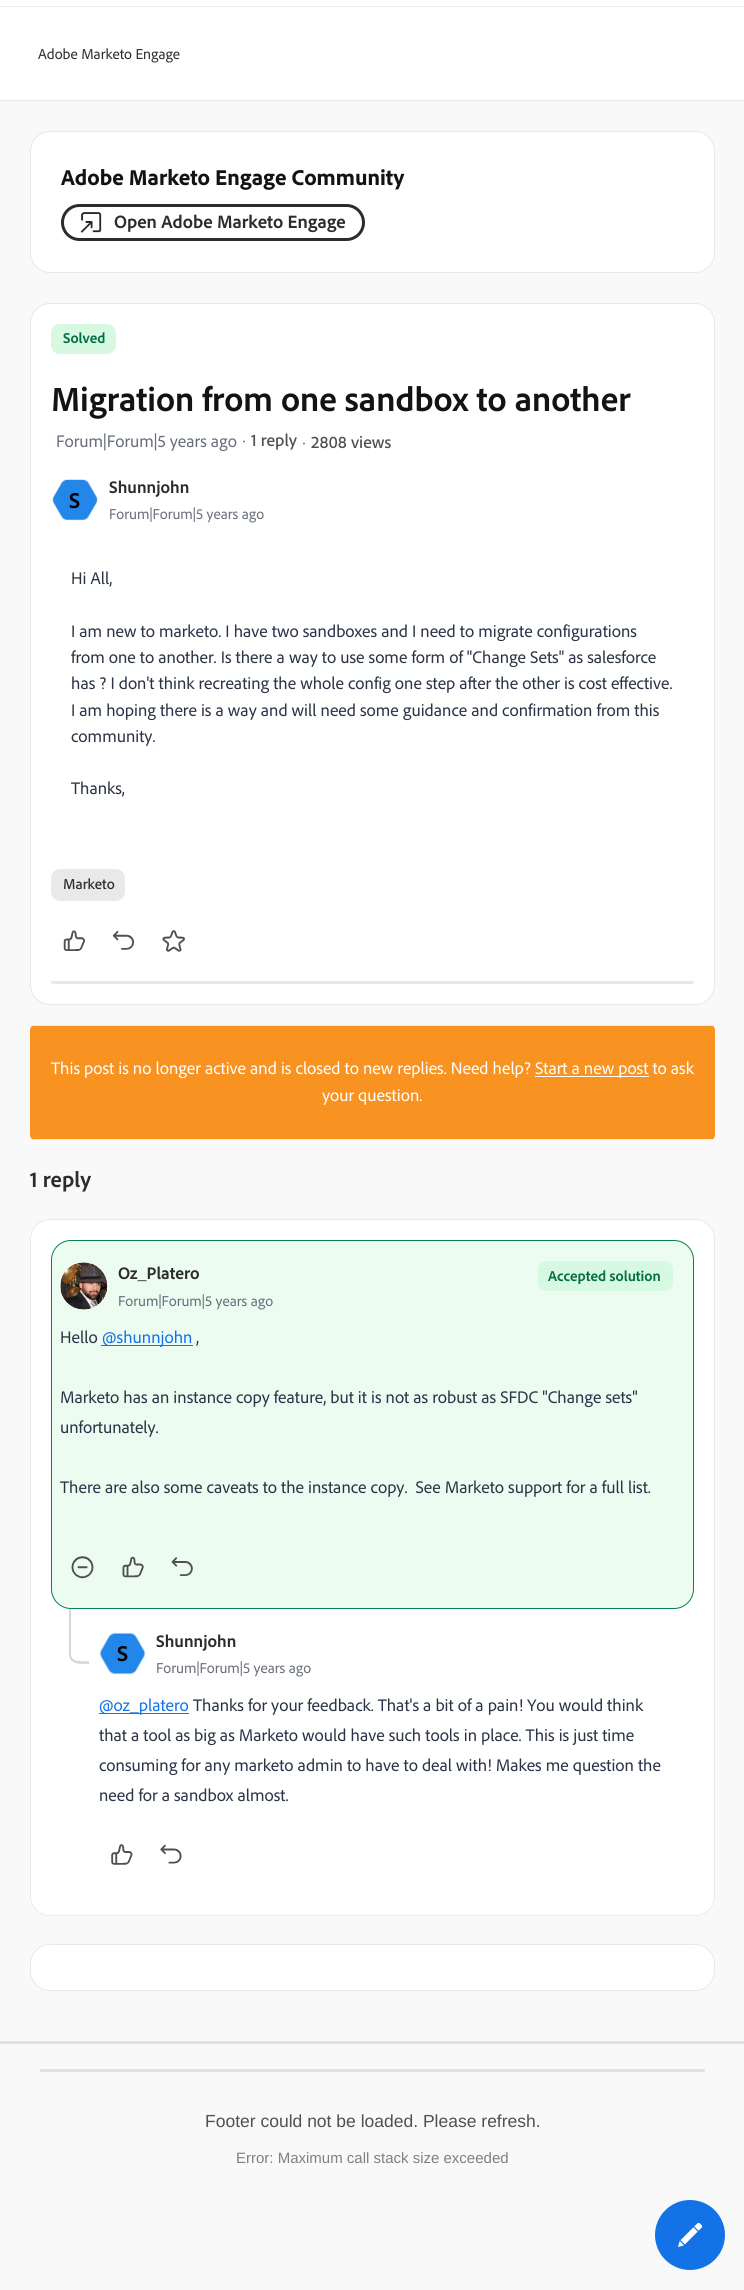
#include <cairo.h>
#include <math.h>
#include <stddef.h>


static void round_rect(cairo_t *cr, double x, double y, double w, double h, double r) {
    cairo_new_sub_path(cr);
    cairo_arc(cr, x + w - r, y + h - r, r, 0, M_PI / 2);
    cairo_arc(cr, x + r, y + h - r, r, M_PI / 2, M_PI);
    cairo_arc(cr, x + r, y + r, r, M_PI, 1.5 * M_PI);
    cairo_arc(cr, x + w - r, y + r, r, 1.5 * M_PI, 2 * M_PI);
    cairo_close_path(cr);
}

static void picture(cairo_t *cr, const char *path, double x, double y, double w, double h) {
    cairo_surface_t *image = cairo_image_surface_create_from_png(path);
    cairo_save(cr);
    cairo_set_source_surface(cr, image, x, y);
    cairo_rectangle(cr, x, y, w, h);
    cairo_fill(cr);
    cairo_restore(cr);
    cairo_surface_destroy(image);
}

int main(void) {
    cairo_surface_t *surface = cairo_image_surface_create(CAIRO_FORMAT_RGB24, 744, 2290);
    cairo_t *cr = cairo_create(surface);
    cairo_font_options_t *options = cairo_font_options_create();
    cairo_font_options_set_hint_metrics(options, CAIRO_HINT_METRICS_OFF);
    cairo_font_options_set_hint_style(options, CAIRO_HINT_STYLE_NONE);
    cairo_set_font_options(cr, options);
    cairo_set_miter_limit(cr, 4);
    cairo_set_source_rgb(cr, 0.973, 0.973, 0.973);
    cairo_paint(cr);
    cairo_set_source_rgb(cr, 1, 1, 1);
    cairo_rectangle(cr, 0, 0, 744, 100);
    cairo_fill(cr);
    cairo_set_source_rgb(cr, 0.918, 0.918, 0.918);
    cairo_rectangle(cr, 0, 100, 744, 1);
    cairo_fill(cr);
    cairo_rectangle(cr, 0, 6, 744, 1);
    cairo_fill(cr);
    cairo_select_font_face(cr, "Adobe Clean", CAIRO_FONT_SLANT_NORMAL, CAIRO_FONT_WEIGHT_NORMAL);
    cairo_set_font_size(cr, 15);
    cairo_set_source_rgb(cr, 0.173, 0.173, 0.173);
    cairo_move_to(cr, 38, 59);
    cairo_show_text(cr, "Adobe Marketo Engage");
    cairo_set_source_rgb(cr, 1, 1, 1);
    round_rect(cr, 30.5, 131.5, 684, 141, 19.5);
    cairo_fill_preserve(cr);
    cairo_set_source_rgb(cr, 0.91, 0.91, 0.91);
    cairo_set_line_width(cr, 1);
    cairo_stroke(cr);
    cairo_select_font_face(cr, "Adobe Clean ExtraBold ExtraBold", CAIRO_FONT_SLANT_NORMAL, CAIRO_FONT_WEIGHT_NORMAL);
    cairo_set_font_size(cr, 22.5);
    cairo_set_source_rgb(cr, 0.075, 0.075, 0.075);
    cairo_move_to(cr, 61, 185);
    cairo_show_text(cr, "Adobe Marketo Engage Community");
    round_rect(cr, 62.5, 205.5, 301, 34, 17);
    cairo_set_source_rgb(cr, 0.173, 0.173, 0.173);
    cairo_set_line_width(cr, 3);
    cairo_stroke(cr);
    picture(cr, "img1.png", 80, 212, 22, 21);
    cairo_select_font_face(cr, "Adobe Clean", CAIRO_FONT_SLANT_NORMAL, CAIRO_FONT_WEIGHT_BOLD);
    cairo_set_font_size(cr, 18.75);
    cairo_move_to(cr, 114, 228);
    cairo_show_text(cr, "Open Adobe Marketo Engage");
    cairo_set_source_rgb(cr, 1, 1, 1);
    round_rect(cr, 30.5, 303.5, 684, 701, 19.5);
    cairo_fill_preserve(cr);
    cairo_set_source_rgb(cr, 0.91, 0.91, 0.91);
    cairo_set_line_width(cr, 1);
    cairo_stroke(cr);
    cairo_set_source_rgb(cr, 0.843, 0.969, 0.882);
    round_rect(cr, 51, 324, 65, 30, 9);
    cairo_fill(cr);
    cairo_set_font_size(cr, 15);
    cairo_set_source_rgb(cr, 0.012, 0.431, 0.271);
    cairo_move_to(cr, 63, 343);
    cairo_show_text(cr, "Solved");
    cairo_set_font_size(cr, 35);
    cairo_set_source_rgb(cr, 0.075, 0.075, 0.075);
    cairo_move_to(cr, 51, 411);
    cairo_show_text(cr, "Migration from one sandbox to another");
    cairo_select_font_face(cr, "Adobe Clean", CAIRO_FONT_SLANT_NORMAL, CAIRO_FONT_WEIGHT_NORMAL);
    cairo_set_font_size(cr, 17.5);
    cairo_set_source_rgb(cr, 0.412, 0.431, 0.486);
    cairo_move_to(cr, 56, 447);
    cairo_show_text(cr, "Forum|Forum|5 years ago");
    cairo_move_to(cr, 242, 446);
    cairo_show_text(cr, "·");
    cairo_select_font_face(cr, "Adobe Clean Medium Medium", CAIRO_FONT_SLANT_NORMAL, CAIRO_FONT_WEIGHT_NORMAL);
    cairo_set_source_rgb(cr, 0.314, 0.314, 0.314);
    cairo_move_to(cr, 251, 446);
    cairo_show_text(cr, "1 reply");
    cairo_select_font_face(cr, "Adobe Clean", CAIRO_FONT_SLANT_NORMAL, CAIRO_FONT_WEIGHT_NORMAL);
    cairo_set_source_rgb(cr, 0.412, 0.431, 0.486);
    cairo_move_to(cr, 302, 448);
    cairo_show_text(cr, "·");
    cairo_select_font_face(cr, "Adobe Clean Medium Medium", CAIRO_FONT_SLANT_NORMAL, CAIRO_FONT_WEIGHT_NORMAL);
    cairo_set_source_rgb(cr, 0.314, 0.314, 0.314);
    cairo_move_to(cr, 311, 448);
    cairo_show_text(cr, "2808 views");
    picture(cr, "img2.png", 52, 479, 46, 42);
    cairo_select_font_face(cr, "Adobe Clean", CAIRO_FONT_SLANT_NORMAL, CAIRO_FONT_WEIGHT_BOLD);
    cairo_set_font_size(cr, 22.5);
    cairo_set_source_rgb(cr, 0, 0, 0);
    cairo_move_to(cr, 69, 508);
    cairo_show_text(cr, "S");
    cairo_set_font_size(cr, 17.5);
    cairo_set_source_rgb(cr, 0.173, 0.173, 0.173);
    cairo_move_to(cr, 109, 493);
    cairo_show_text(cr, "Shunnjohn");
    cairo_select_font_face(cr, "Adobe Clean", CAIRO_FONT_SLANT_NORMAL, CAIRO_FONT_WEIGHT_NORMAL);
    cairo_set_font_size(cr, 15);
    cairo_set_source_rgb(cr, 0.412, 0.431, 0.486);
    cairo_move_to(cr, 109, 519);
    cairo_show_text(cr, "Forum|Forum|5 years ago");
    cairo_set_font_size(cr, 17.5);
    cairo_set_source_rgb(cr, 0.169, 0.2, 0.275);
    cairo_move_to(cr, 71, 584);
    cairo_show_text(cr, "Hi All,");
    cairo_move_to(cr, 71, 637);
    cairo_show_text(cr, "I am new to marketo. I have two sandboxes and I need to migrate configurations");
    cairo_move_to(cr, 71, 663);
    cairo_show_text(cr, "from one to another. Is there a way to use some form of \"Change Sets\" as salesforce");
    cairo_move_to(cr, 71, 689);
    cairo_show_text(cr, "has ? I don't think recreating the whole config one step after the other is cost effective.");
    cairo_move_to(cr, 71, 716);
    cairo_show_text(cr, "I am hoping there is a way and will need some guidance and confirmation from this");
    cairo_move_to(cr, 71, 742);
    cairo_show_text(cr, "community.");
    cairo_move_to(cr, 71, 794);
    cairo_show_text(cr, "Thanks,");
    cairo_set_source_rgb(cr, 0.914, 0.914, 0.914);
    round_rect(cr, 51.5, 869.5, 73, 31, 8.5);
    cairo_fill_preserve(cr);
    cairo_set_source_rgb(cr, 0.914, 0.918, 0.918);
    cairo_stroke(cr);
    cairo_select_font_face(cr, "Adobe Clean Medium Medium", CAIRO_FONT_SLANT_NORMAL, CAIRO_FONT_WEIGHT_NORMAL);
    cairo_set_font_size(cr, 15);
    cairo_set_source_rgb(cr, 0.173, 0.173, 0.173);
    cairo_move_to(cr, 63, 889);
    cairo_show_text(cr, "Marketo");
    picture(cr, "img3.png", 63, 930, 22, 21);
    picture(cr, "img4.png", 112, 931, 23, 19);
    picture(cr, "img5.png", 162, 930, 23, 22);
    cairo_set_source_rgb(cr, 0.91, 0.91, 0.91);
    round_rect(cr, 51, 981, 643, 3, 1.5);
    cairo_fill(cr);
    cairo_set_source_rgb(cr, 0.969, 0.576, 0.129);
    round_rect(cr, 30, 1025, 685, 115, 5);
    cairo_fill(cr);
    cairo_set_source_rgb(cr, 0.914, 0.918, 0.918);
    cairo_rectangle(cr, 33, 1025, 680, 1);
    cairo_fill(cr);
    cairo_rectangle(cr, 33, 1139, 680, 1);
    cairo_fill(cr);
    cairo_select_font_face(cr, "Adobe Clean", CAIRO_FONT_SLANT_NORMAL, CAIRO_FONT_WEIGHT_NORMAL);
    cairo_set_font_size(cr, 17.5);
    cairo_set_source_rgb(cr, 1, 1, 1);
    cairo_move_to(cr, 51, 1074);
    cairo_show_text(cr, "This post is no longer active and is closed to new replies. Need help?");
    cairo_rectangle(cr, 535, 1076, 114, 1);
    cairo_fill(cr);
    cairo_move_to(cr, 535, 1074);
    cairo_show_text(cr, "Start a new post to ask");
    cairo_move_to(cr, 322, 1101);
    cairo_show_text(cr, "your question.");
    cairo_select_font_face(cr, "Adobe Clean", CAIRO_FONT_SLANT_NORMAL, CAIRO_FONT_WEIGHT_BOLD);
    cairo_set_font_size(cr, 22.5);
    cairo_set_source_rgb(cr, 0.173, 0.173, 0.173);
    cairo_move_to(cr, 30, 1187);
    cairo_show_text(cr, "1 reply");
    cairo_set_source_rgb(cr, 1, 1, 1);
    round_rect(cr, 30.5, 1219.5, 684, 696, 19.5);
    cairo_fill_preserve(cr);
    cairo_set_source_rgb(cr, 0.914, 0.918, 0.918);
    cairo_stroke(cr);
    cairo_set_source_rgb(cr, 0.929, 0.988, 0.945);
    round_rect(cr, 51.5, 1240.5, 642, 368, 19.5);
    cairo_fill_preserve(cr);
    cairo_set_source_rgb(cr, 0.02, 0.514, 0.306);
    cairo_stroke(cr);
    cairo_set_source_rgb(cr, 1, 1, 1);
    round_rect(cr, 60, 1263, 48, 47, 23.5);
    cairo_fill(cr);
    picture(cr, "img6.png", 60, 1262, 48, 48);
    cairo_set_font_size(cr, 17.5);
    cairo_set_source_rgb(cr, 0.173, 0.173, 0.173);
    cairo_move_to(cr, 118, 1279);
    cairo_show_text(cr, "Oz_Platero");
    cairo_set_source_rgb(cr, 0.843, 0.969, 0.882);
    round_rect(cr, 538, 1261, 135, 30, 9);
    cairo_fill(cr);
    cairo_set_font_size(cr, 15);
    cairo_set_source_rgb(cr, 0.012, 0.431, 0.271);
    cairo_move_to(cr, 548, 1281);
    cairo_show_text(cr, "Accepted solution");
    cairo_select_font_face(cr, "Adobe Clean", CAIRO_FONT_SLANT_NORMAL, CAIRO_FONT_WEIGHT_NORMAL);
    cairo_set_source_rgb(cr, 0.412, 0.431, 0.486);
    cairo_move_to(cr, 118, 1306);
    cairo_show_text(cr, "Forum|Forum|5 years ago");
    cairo_set_font_size(cr, 17.5);
    cairo_set_source_rgb(cr, 0.169, 0.2, 0.275);
    cairo_move_to(cr, 60, 1343);
    cairo_show_text(cr, "Hello");
    cairo_set_source_rgb(cr, 0.078, 0.451, 0.902);
    cairo_rectangle(cr, 101, 1345, 92, 1);
    cairo_fill(cr);
    cairo_move_to(cr, 102, 1343);
    cairo_show_text(cr, "@shunnjohn");
    cairo_set_source_rgb(cr, 0.169, 0.2, 0.275);
    cairo_move_to(cr, 196, 1343);
    cairo_show_text(cr, ",");
    cairo_move_to(cr, 60, 1403);
    cairo_show_text(cr, "Marketo has an instance copy feature, but it is not as robust as SFDC \"Change sets\"");
    cairo_move_to(cr, 60, 1433);
    cairo_show_text(cr, "unfortunately.");
    cairo_move_to(cr, 60, 1493);
    cairo_show_text(cr, "There are also some caveats to the instance copy.  See Marketo support for a full list.");
    picture(cr, "img7.png", 71, 1556, 23, 23);
    picture(cr, "img8.png", 122, 1556, 22, 22);
    picture(cr, "img9.png", 171, 1557, 22, 19);
    cairo_set_source_rgb(cr, 0.835, 0.851, 0.871);
    cairo_set_fill_rule(cr, CAIRO_FILL_RULE_EVEN_ODD);
    cairo_new_path(cr);
    cairo_move_to(cr, 69, 1609);
    cairo_line_to(cr, 89, 1609);
    cairo_line_to(cr, 89, 1664);
    cairo_curve_to(cr, 81, 1664, 69, 1665, 69, 1654);
    cairo_close_path(cr);
    cairo_move_to(cr, 71, 1609);
    cairo_line_to(cr, 89, 1609);
    cairo_line_to(cr, 89, 1661);
    cairo_curve_to(cr, 83, 1661, 71, 1663, 71, 1654);
    cairo_close_path(cr);
    cairo_fill(cr);
    picture(cr, "img10.png", 99, 1632, 47, 43);
    cairo_select_font_face(cr, "Adobe Clean", CAIRO_FONT_SLANT_NORMAL, CAIRO_FONT_WEIGHT_BOLD);
    cairo_set_font_size(cr, 22.5);
    cairo_set_source_rgb(cr, 0, 0, 0);
    cairo_move_to(cr, 117, 1661);
    cairo_show_text(cr, "S");
    cairo_set_font_size(cr, 17.5);
    cairo_set_source_rgb(cr, 0.173, 0.173, 0.173);
    cairo_move_to(cr, 156, 1647);
    cairo_show_text(cr, "Shunnjohn");
    cairo_select_font_face(cr, "Adobe Clean", CAIRO_FONT_SLANT_NORMAL, CAIRO_FONT_WEIGHT_NORMAL);
    cairo_set_font_size(cr, 15);
    cairo_set_source_rgb(cr, 0.412, 0.431, 0.486);
    cairo_move_to(cr, 156, 1673);
    cairo_show_text(cr, "Forum|Forum|5 years ago");
    cairo_set_source_rgb(cr, 0.078, 0.451, 0.902);
    cairo_rectangle(cr, 99, 1713, 90, 1);
    cairo_fill(cr);
    cairo_set_font_size(cr, 17.5);
    cairo_move_to(cr, 99, 1711);
    cairo_show_text(cr, "@oz_platero");
    cairo_set_source_rgb(cr, 0.169, 0.2, 0.275);
    cairo_move_to(cr, 193, 1711);
    cairo_show_text(cr, "Thanks for your feedback. That's a bit of a pain! You would think");
    cairo_move_to(cr, 99, 1741);
    cairo_show_text(cr, "that a tool as big as Marketo would have such tools in place. This is just time");
    cairo_move_to(cr, 99, 1771);
    cairo_show_text(cr, "consuming for any marketo admin to have to deal with! Makes me question the");
    cairo_move_to(cr, 99, 1801);
    cairo_show_text(cr, "need for a sandbox almost.");
    picture(cr, "img11.png", 111, 1844, 22, 21);
    picture(cr, "img12.png", 160, 1844, 22, 20);
    cairo_set_source_rgb(cr, 1, 1, 1);
    round_rect(cr, 30.5, 1944.5, 684, 46, 19.5);
    cairo_fill_preserve(cr);
    cairo_set_source_rgb(cr, 0.91, 0.91, 0.91);
    cairo_stroke(cr);
    cairo_set_source_rgb(cr, 0.882, 0.882, 0.882);
    cairo_rectangle(cr, 0, 2041, 744, 3);
    cairo_fill(cr);
    cairo_rectangle(cr, 40, 2069, 665, 3);
    cairo_fill(cr);
    cairo_select_font_face(cr, "Liberation Sans", CAIRO_FONT_SLANT_NORMAL, CAIRO_FONT_WEIGHT_NORMAL);
    cairo_set_source_rgb(cr, 0.314, 0.314, 0.314);
    cairo_move_to(cr, 205, 2127);
    cairo_show_text(cr, "Footer could not be loaded. Please refresh.");
    cairo_set_font_size(cr, 15);
    cairo_set_source_rgb(cr, 0.502, 0.502, 0.502);
    cairo_move_to(cr, 236, 2163);
    cairo_show_text(cr, "Error: Maximum call stack size exceeded");
    cairo_set_source_rgb(cr, 0.078, 0.451, 0.902);
    cairo_new_path(cr);
    cairo_arc(cr, 690, 2235, 35, 0, 2 * M_PI);
    cairo_fill(cr);
    picture(cr, "img13.png", 678, 2223, 25, 24);
    cairo_surface_write_to_png(surface, "page.png");
    cairo_font_options_destroy(options);
    cairo_destroy(cr);
    cairo_surface_destroy(surface);
    return 0;
}
